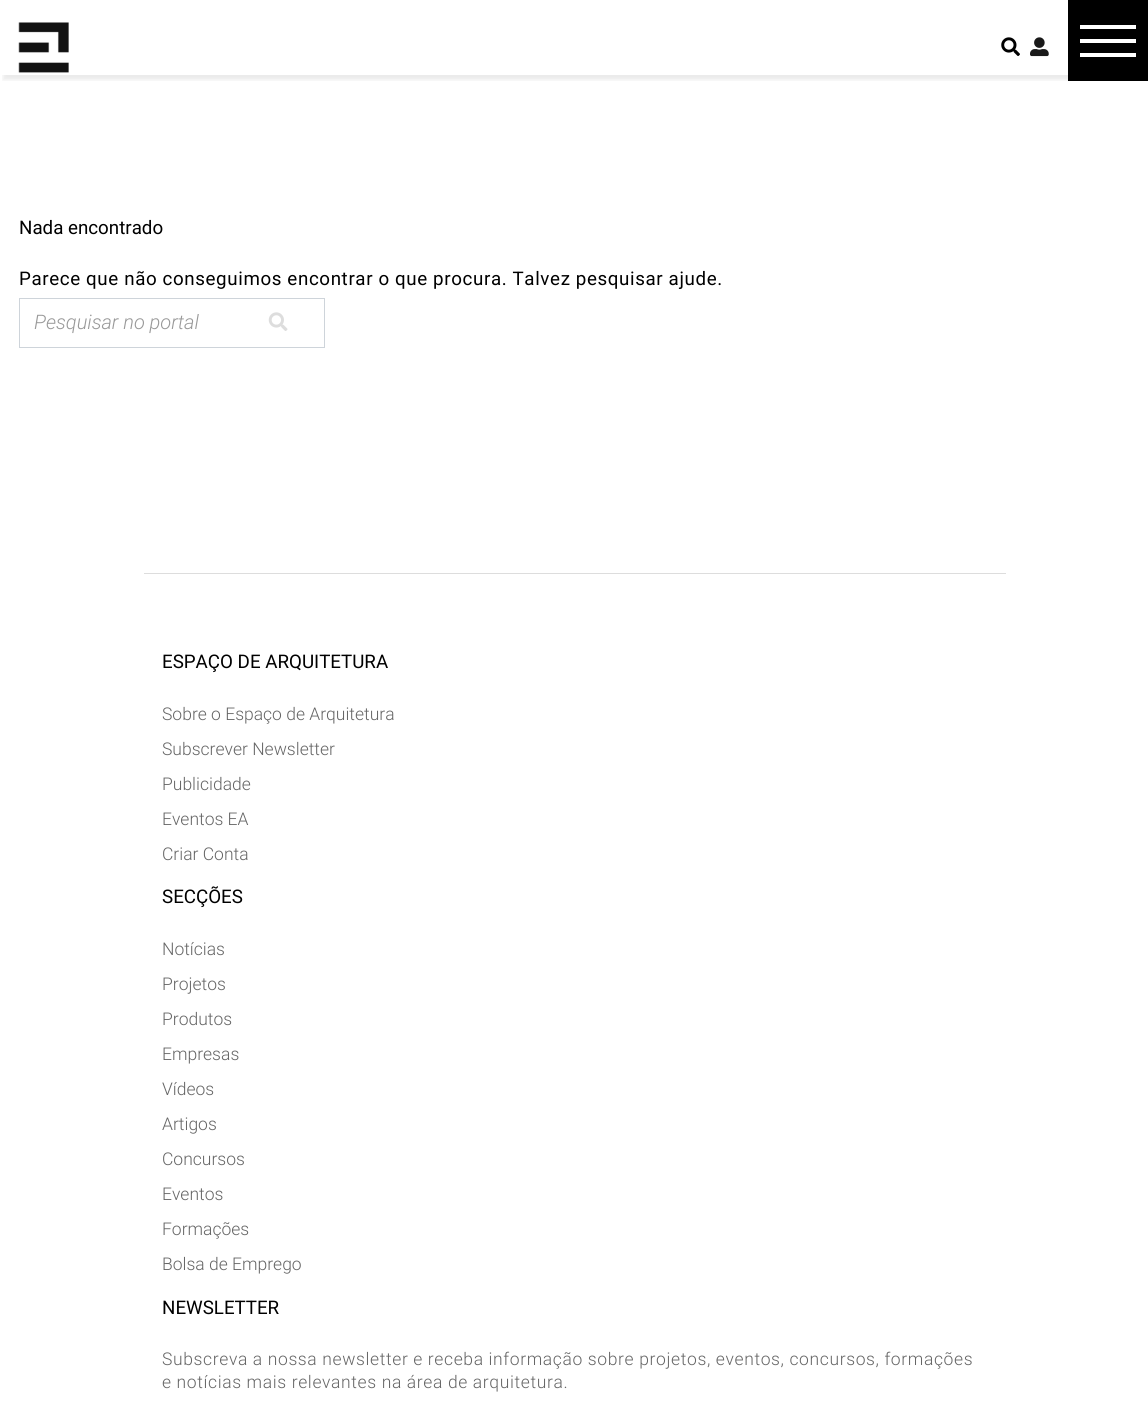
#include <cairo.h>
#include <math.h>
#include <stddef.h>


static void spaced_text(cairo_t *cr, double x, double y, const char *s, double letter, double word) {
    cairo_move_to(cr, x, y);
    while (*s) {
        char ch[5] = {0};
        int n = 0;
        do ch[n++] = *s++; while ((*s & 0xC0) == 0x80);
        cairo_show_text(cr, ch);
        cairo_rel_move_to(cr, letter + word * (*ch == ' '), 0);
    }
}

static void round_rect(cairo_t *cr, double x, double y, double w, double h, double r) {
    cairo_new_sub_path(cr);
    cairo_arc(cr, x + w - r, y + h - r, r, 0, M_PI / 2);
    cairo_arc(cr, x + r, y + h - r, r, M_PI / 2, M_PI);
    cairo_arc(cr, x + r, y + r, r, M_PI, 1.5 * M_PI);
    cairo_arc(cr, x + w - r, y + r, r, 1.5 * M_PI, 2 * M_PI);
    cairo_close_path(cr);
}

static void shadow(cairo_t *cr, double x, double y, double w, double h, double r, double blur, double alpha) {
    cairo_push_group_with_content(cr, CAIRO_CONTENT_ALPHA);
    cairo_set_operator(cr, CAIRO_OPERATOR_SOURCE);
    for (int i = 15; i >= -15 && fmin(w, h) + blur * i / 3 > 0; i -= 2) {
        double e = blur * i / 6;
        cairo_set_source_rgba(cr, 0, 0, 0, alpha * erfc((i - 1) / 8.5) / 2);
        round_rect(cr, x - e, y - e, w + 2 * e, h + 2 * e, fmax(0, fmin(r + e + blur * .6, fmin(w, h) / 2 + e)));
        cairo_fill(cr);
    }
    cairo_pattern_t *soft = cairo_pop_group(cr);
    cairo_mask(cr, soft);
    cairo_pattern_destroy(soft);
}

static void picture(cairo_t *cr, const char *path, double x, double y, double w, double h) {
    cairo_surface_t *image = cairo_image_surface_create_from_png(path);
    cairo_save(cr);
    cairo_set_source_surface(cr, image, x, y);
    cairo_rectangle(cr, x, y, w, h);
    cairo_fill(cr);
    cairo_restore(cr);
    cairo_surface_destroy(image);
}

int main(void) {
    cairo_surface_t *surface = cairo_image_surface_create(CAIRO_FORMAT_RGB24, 1148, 1407);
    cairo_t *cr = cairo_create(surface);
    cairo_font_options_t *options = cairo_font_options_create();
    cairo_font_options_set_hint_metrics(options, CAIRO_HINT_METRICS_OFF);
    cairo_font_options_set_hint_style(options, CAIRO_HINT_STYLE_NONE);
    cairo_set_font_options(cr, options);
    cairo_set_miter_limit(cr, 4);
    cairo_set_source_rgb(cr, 1, 1, 1);
    cairo_paint(cr);
    cairo_save(cr);
    cairo_rectangle(cr, 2, 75, 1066, 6);
    cairo_clip(cr);
    cairo_set_source_rgb(cr, 0, 0, 0);
    shadow(cr, 3, 10, 1143, 70, 0, 2, 0.08);
    cairo_restore(cr);
    cairo_set_source_rgb(cr, 0, 0, 0);
    cairo_rectangle(cr, 1068, 0, 80, 81);
    cairo_fill(cr);
    cairo_set_source_rgb(cr, 1, 1, 1);
    cairo_rectangle(cr, 1080, 25, 56, 4);
    cairo_fill(cr);
    cairo_rectangle(cr, 1080, 39, 56, 4);
    cairo_fill(cr);
    cairo_rectangle(cr, 1080, 53, 56, 4);
    cairo_fill(cr);
    picture(cr, "img1.png", 18, 22, 51, 51);
    picture(cr, "img2.png", 1001, 37, 19, 19);
    picture(cr, "img3.png", 1030, 37, 19, 20);
    cairo_select_font_face(cr, "Roboto", CAIRO_FONT_SLANT_NORMAL, CAIRO_FONT_WEIGHT_NORMAL);
    cairo_set_font_size(cr, 18.75);
    cairo_set_source_rgb(cr, 0, 0, 0);
    cairo_move_to(cr, 19, 234);
    cairo_show_text(cr, "Nada encontrado");
    spaced_text(cr, 19, 285, "Parece que não conseguimos encontrar o que procura. Talvez pesquisar ajude.", 0.62, 0);
    cairo_rectangle(cr, 19.5, 298.5, 305, 49);
    cairo_set_source_rgb(cr, 0.808, 0.831, 0.855);
    cairo_set_line_width(cr, 1);
    cairo_stroke(cr);
    cairo_select_font_face(cr, "Roboto Light", CAIRO_FONT_SLANT_ITALIC, CAIRO_FONT_WEIGHT_NORMAL);
    cairo_set_font_size(cr, 20);
    cairo_set_source_rgb(cr, 0.6, 0.6, 0.6);
    cairo_move_to(cr, 34, 329);
    cairo_show_text(cr, "Pesquisar no portal");
    picture(cr, "img4.png", 268, 312, 20, 19);
    cairo_set_source_rgb(cr, 0.867, 0.867, 0.867);
    cairo_rectangle(cr, 144, 573, 862, 1);
    cairo_fill(cr);
    cairo_select_font_face(cr, "Roboto", CAIRO_FONT_SLANT_NORMAL, CAIRO_FONT_WEIGHT_NORMAL);
    cairo_set_font_size(cr, 18.75);
    cairo_set_source_rgb(cr, 0, 0, 0);
    cairo_move_to(cr, 162, 668);
    cairo_show_text(cr, "ESPAÇO DE ARQUITETURA");
    cairo_select_font_face(cr, "Roboto Light", CAIRO_FONT_SLANT_NORMAL, CAIRO_FONT_WEIGHT_NORMAL);
    cairo_set_font_size(cr, 17.5);
    cairo_set_source_rgb(cr, 0.4, 0.4, 0.4);
    cairo_move_to(cr, 162, 720);
    cairo_show_text(cr, "Sobre o Espaço de Arquitetura");
    cairo_move_to(cr, 162, 755);
    cairo_show_text(cr, "Subscrever Newsletter");
    cairo_move_to(cr, 162, 790);
    cairo_show_text(cr, "Publicidade");
    cairo_move_to(cr, 162, 825);
    cairo_show_text(cr, "Eventos EA");
    cairo_move_to(cr, 162, 860);
    cairo_show_text(cr, "Criar Conta");
    cairo_select_font_face(cr, "Roboto", CAIRO_FONT_SLANT_NORMAL, CAIRO_FONT_WEIGHT_NORMAL);
    cairo_set_font_size(cr, 18.75);
    cairo_set_source_rgb(cr, 0, 0, 0);
    cairo_move_to(cr, 162, 903);
    cairo_show_text(cr, "SECÇÕES");
    cairo_select_font_face(cr, "Roboto Light", CAIRO_FONT_SLANT_NORMAL, CAIRO_FONT_WEIGHT_NORMAL);
    cairo_set_font_size(cr, 17.5);
    cairo_set_source_rgb(cr, 0.4, 0.4, 0.4);
    cairo_move_to(cr, 162, 955);
    cairo_show_text(cr, "Notícias");
    cairo_move_to(cr, 162, 990);
    cairo_show_text(cr, "Projetos");
    cairo_move_to(cr, 162, 1025);
    cairo_show_text(cr, "Produtos");
    cairo_move_to(cr, 162, 1060);
    cairo_show_text(cr, "Empresas");
    cairo_move_to(cr, 162, 1095);
    cairo_show_text(cr, "Vídeos");
    cairo_move_to(cr, 162, 1130);
    cairo_show_text(cr, "Artigos");
    cairo_move_to(cr, 162, 1165);
    cairo_show_text(cr, "Concursos");
    cairo_move_to(cr, 162, 1200);
    cairo_show_text(cr, "Eventos");
    cairo_move_to(cr, 162, 1235);
    cairo_show_text(cr, "Formações");
    cairo_move_to(cr, 162, 1270);
    cairo_show_text(cr, "Bolsa de Emprego");
    cairo_select_font_face(cr, "Roboto", CAIRO_FONT_SLANT_NORMAL, CAIRO_FONT_WEIGHT_NORMAL);
    cairo_set_font_size(cr, 18.75);
    cairo_set_source_rgb(cr, 0, 0, 0);
    cairo_move_to(cr, 162, 1314);
    cairo_show_text(cr, "NEWSLETTER");
    cairo_select_font_face(cr, "Roboto Light", CAIRO_FONT_SLANT_NORMAL, CAIRO_FONT_WEIGHT_NORMAL);
    cairo_set_font_size(cr, 17.5);
    cairo_set_source_rgb(cr, 0.4, 0.4, 0.4);
    spaced_text(cr, 162, 1365, "Subscreva a nossa newsletter e receba informação sobre projetos, eventos, concursos, formações", 0.62, 0);
    spaced_text(cr, 162, 1388, "e notícias mais relevantes na área de arquitetura.", 0.62, 0);
    cairo_surface_write_to_png(surface, "page.png");
    cairo_font_options_destroy(options);
    cairo_destroy(cr);
    cairo_surface_destroy(surface);
    return 0;
}
